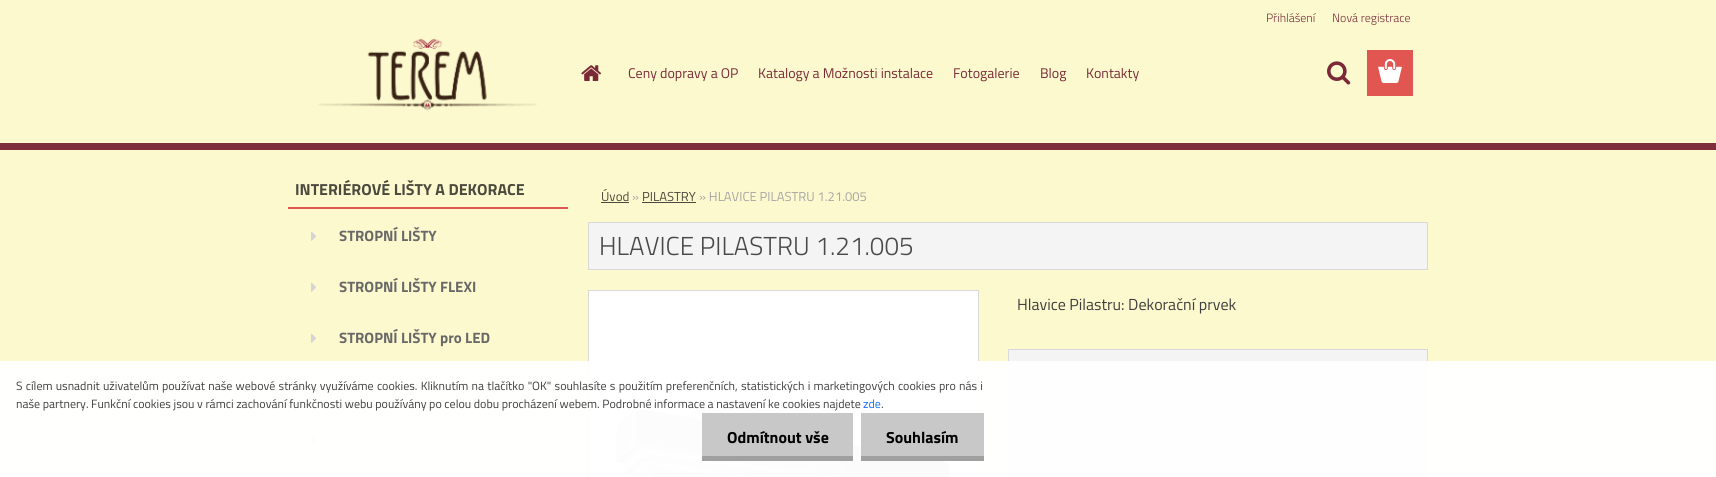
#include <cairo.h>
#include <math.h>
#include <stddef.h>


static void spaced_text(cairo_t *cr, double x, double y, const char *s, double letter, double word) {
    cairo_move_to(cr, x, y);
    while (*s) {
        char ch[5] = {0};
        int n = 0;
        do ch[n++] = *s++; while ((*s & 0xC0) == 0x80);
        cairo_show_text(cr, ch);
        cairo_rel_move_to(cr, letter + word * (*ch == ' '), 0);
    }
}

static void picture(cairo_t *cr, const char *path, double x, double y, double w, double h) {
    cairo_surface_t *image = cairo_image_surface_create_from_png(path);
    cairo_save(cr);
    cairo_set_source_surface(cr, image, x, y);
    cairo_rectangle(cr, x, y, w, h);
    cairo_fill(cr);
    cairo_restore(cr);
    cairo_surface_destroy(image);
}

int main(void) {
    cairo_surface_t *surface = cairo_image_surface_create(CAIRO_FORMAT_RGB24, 1716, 477);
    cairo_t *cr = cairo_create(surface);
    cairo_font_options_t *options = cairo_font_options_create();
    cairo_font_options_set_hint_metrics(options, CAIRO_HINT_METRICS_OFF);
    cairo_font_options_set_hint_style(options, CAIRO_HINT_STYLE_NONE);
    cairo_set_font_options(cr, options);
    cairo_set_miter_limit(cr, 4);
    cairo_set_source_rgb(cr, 0.988, 0.973, 0.808);
    cairo_paint(cr);
    cairo_set_source_rgb(cr, 0.298, 0.29, 0.243);
    cairo_rectangle(cr, 642, 202, 54, 1);
    cairo_fill(cr);
    cairo_rectangle(cr, 601, 202, 28, 1);
    cairo_fill(cr);
    cairo_select_font_face(cr, "Titillium Web Light", CAIRO_FONT_SLANT_NORMAL, CAIRO_FONT_WEIGHT_NORMAL);
    cairo_set_font_size(cr, 12);
    cairo_set_source_rgb(cr, 0.478, 0.165, 0.216);
    cairo_move_to(cr, 1266, 22);
    cairo_show_text(cr, "Přihlášení");
    cairo_move_to(cr, 1332, 22);
    cairo_show_text(cr, "Nová registrace");
    cairo_set_source_rgb(cr, 0.882, 0.337, 0.318);
    cairo_rectangle(cr, 1367, 50, 46, 46);
    cairo_fill(cr);
    picture(cr, "img1.png", 1378, 59, 24, 24);
    cairo_rectangle(cr, 288, 207, 280, 2);
    cairo_fill(cr);
    cairo_select_font_face(cr, "Titillium Web", CAIRO_FONT_SLANT_NORMAL, CAIRO_FONT_WEIGHT_BOLD);
    cairo_set_font_size(cr, 16);
    cairo_set_source_rgb(cr, 0.294, 0.29, 0.239);
    cairo_move_to(cr, 295, 195);
    cairo_show_text(cr, "INTERIÉROVÉ LIŠTY A DEKORACE");
    picture(cr, "img2.png", 311, 231, 5, 10);
    cairo_set_font_size(cr, 15);
    cairo_set_source_rgb(cr, 0.408, 0.408, 0.408);
    cairo_move_to(cr, 339, 241);
    cairo_show_text(cr, "STROPNÍ LIŠTY");
    picture(cr, "img2.png", 311, 282, 5, 10);
    cairo_move_to(cr, 339, 292);
    cairo_show_text(cr, "STROPNÍ LIŠTY FLEXI");
    picture(cr, "img2.png", 311, 333, 5, 10);
    cairo_move_to(cr, 339, 343);
    cairo_show_text(cr, "STROPNÍ LIŠTY pro LED");
    picture(cr, "img2.png", 311, 384, 5, 10);
    picture(cr, "img2.png", 311, 435, 5, 10);
    cairo_select_font_face(cr, "Titillium Web", CAIRO_FONT_SLANT_NORMAL, CAIRO_FONT_WEIGHT_NORMAL);
    cairo_set_font_size(cr, 13);
    cairo_set_source_rgb(cr, 0.294, 0.29, 0.239);
    cairo_move_to(cr, 601, 201);
    cairo_show_text(cr, "Úvod");
    cairo_set_source_rgb(cr, 0.647, 0.647, 0.647);
    cairo_move_to(cr, 632, 201);
    cairo_show_text(cr, "»");
    cairo_set_source_rgb(cr, 0.294, 0.29, 0.239);
    cairo_move_to(cr, 642, 201);
    cairo_show_text(cr, "PILASTRY");
    cairo_set_source_rgb(cr, 0.647, 0.647, 0.647);
    cairo_move_to(cr, 699, 201);
    cairo_show_text(cr, "» HLAVICE PILASTRU 1.21.005");
    cairo_set_source_rgb(cr, 0.957, 0.957, 0.957);
    cairo_rectangle(cr, 588.5, 222.5, 839, 47);
    cairo_fill_preserve(cr);
    cairo_set_source_rgb(cr, 0.851, 0.851, 0.851);
    cairo_set_line_width(cr, 1);
    cairo_stroke(cr);
    cairo_select_font_face(cr, "Titillium Web Light", CAIRO_FONT_SLANT_NORMAL, CAIRO_FONT_WEIGHT_NORMAL);
    cairo_set_font_size(cr, 26);
    cairo_set_source_rgb(cr, 0.286, 0.286, 0.286);
    cairo_move_to(cr, 599, 255);
    cairo_show_text(cr, "HLAVICE PILASTRU 1.21.005");
    cairo_rectangle(cr, 588.5, 290.5, 390, 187);
    cairo_set_source_rgb(cr, 0.851, 0.851, 0.851);
    cairo_stroke(cr);
    cairo_set_source_rgb(cr, 1, 1, 1);
    cairo_rectangle(cr, 589, 291, 389, 186);
    cairo_fill(cr);
    picture(cr, "img3.png", 615, 408, 336, 69);
    cairo_select_font_face(cr, "Titillium Web", CAIRO_FONT_SLANT_NORMAL, CAIRO_FONT_WEIGHT_NORMAL);
    cairo_set_font_size(cr, 16);
    cairo_set_source_rgb(cr, 0.247, 0.247, 0.247);
    cairo_move_to(cr, 1017, 310);
    cairo_show_text(cr, "Hlavice Pilastru: Dekorační prvek");
    cairo_set_source_rgb(cr, 0.851, 0.851, 0.851);
    cairo_rectangle(cr, 1008, 349, 420, 1);
    cairo_fill(cr);
    cairo_rectangle(cr, 1427, 349, 1, 128);
    cairo_fill(cr);
    cairo_rectangle(cr, 1008, 349, 1, 128);
    cairo_fill(cr);
    cairo_set_source_rgb(cr, 0.957, 0.957, 0.957);
    cairo_rectangle(cr, 1009, 350, 418, 42);
    cairo_fill(cr);
    cairo_rectangle(cr, 1009, 393, 418, 42);
    cairo_fill(cr);
    cairo_set_source_rgb(cr, 0.851, 0.851, 0.851);
    cairo_rectangle(cr, 1008, 392, 420, 1);
    cairo_fill(cr);
    cairo_set_source_rgb(cr, 0.957, 0.957, 0.957);
    cairo_rectangle(cr, 1009, 436, 418, 41);
    cairo_fill(cr);
    cairo_set_source_rgb(cr, 0.851, 0.851, 0.851);
    cairo_rectangle(cr, 1008, 435, 420, 1);
    cairo_fill(cr);
    cairo_set_source_rgb(cr, 0.498, 0.184, 0.235);
    cairo_rectangle(cr, 0, 143, 1716, 7);
    cairo_fill(cr);
    picture(cr, "img4.png", 318, 38, 219, 73);
    picture(cr, "img5.png", 581, 65, 21, 16);
    cairo_set_font_size(cr, 14);
    cairo_set_source_rgb(cr, 0.478, 0.165, 0.216);
    cairo_move_to(cr, 628, 78);
    cairo_show_text(cr, "Ceny dopravy a OP");
    cairo_move_to(cr, 758, 78);
    cairo_show_text(cr, "Katalogy a Možnosti instalace");
    cairo_move_to(cr, 953, 78);
    cairo_show_text(cr, "Fotogalerie");
    cairo_move_to(cr, 1040, 78);
    cairo_show_text(cr, "Blog");
    cairo_move_to(cr, 1086, 78);
    cairo_show_text(cr, "Kontakty");
    picture(cr, "img6.png", 1327, 61, 24, 24);
    cairo_set_source_rgba(cr, 1, 1, 1, 0.95);
    cairo_rectangle(cr, 0, 361, 1716, 116);
    cairo_fill(cr);
    cairo_set_font_size(cr, 12);
    cairo_set_source_rgb(cr, 0.247, 0.247, 0.247);
    spaced_text(cr, 16, 390, "S cílem usnadnit uživatelům používat naše webové stránky využíváme cookies. Kliknutím na tlačítko \"OK\" souhlasíte s použitím preferenčních, statistických i marketingových cookies pro nás i", 0, 0.6);
    cairo_move_to(cr, 16, 408);
    cairo_show_text(cr, "naše partnery. Funkční cookies jsou v rámci zachování funkčnosti webu používány po celou dobu procházení webem. Podrobné informace a nastavení ke cookies najdete");
    cairo_set_source_rgb(cr, 0.051, 0.431, 0.992);
    cairo_move_to(cr, 863, 408);
    cairo_show_text(cr, "zde");
    cairo_set_source_rgb(cr, 0.247, 0.247, 0.247);
    cairo_move_to(cr, 881, 408);
    cairo_show_text(cr, ".");
    cairo_set_source_rgb(cr, 0.784, 0.784, 0.784);
    cairo_rectangle(cr, 702, 413, 151, 43);
    cairo_fill(cr);
    cairo_set_source_rgb(cr, 0.627, 0.627, 0.627);
    cairo_rectangle(cr, 702, 456, 151, 5);
    cairo_fill(cr);
    cairo_select_font_face(cr, "Titillium Web", CAIRO_FONT_SLANT_NORMAL, CAIRO_FONT_WEIGHT_BOLD);
    cairo_set_font_size(cr, 16);
    cairo_set_source_rgb(cr, 0, 0, 0);
    cairo_move_to(cr, 727, 443);
    cairo_show_text(cr, "Odmítnout vše");
    cairo_set_source_rgb(cr, 0.784, 0.784, 0.784);
    cairo_rectangle(cr, 861, 413, 123, 43);
    cairo_fill(cr);
    cairo_set_source_rgb(cr, 0.627, 0.627, 0.627);
    cairo_rectangle(cr, 861, 456, 123, 5);
    cairo_fill(cr);
    cairo_set_source_rgb(cr, 0, 0, 0);
    cairo_move_to(cr, 886, 443);
    cairo_show_text(cr, "Souhlasím");
    cairo_surface_write_to_png(surface, "page.png");
    cairo_font_options_destroy(options);
    cairo_destroy(cr);
    cairo_surface_destroy(surface);
    return 0;
}
